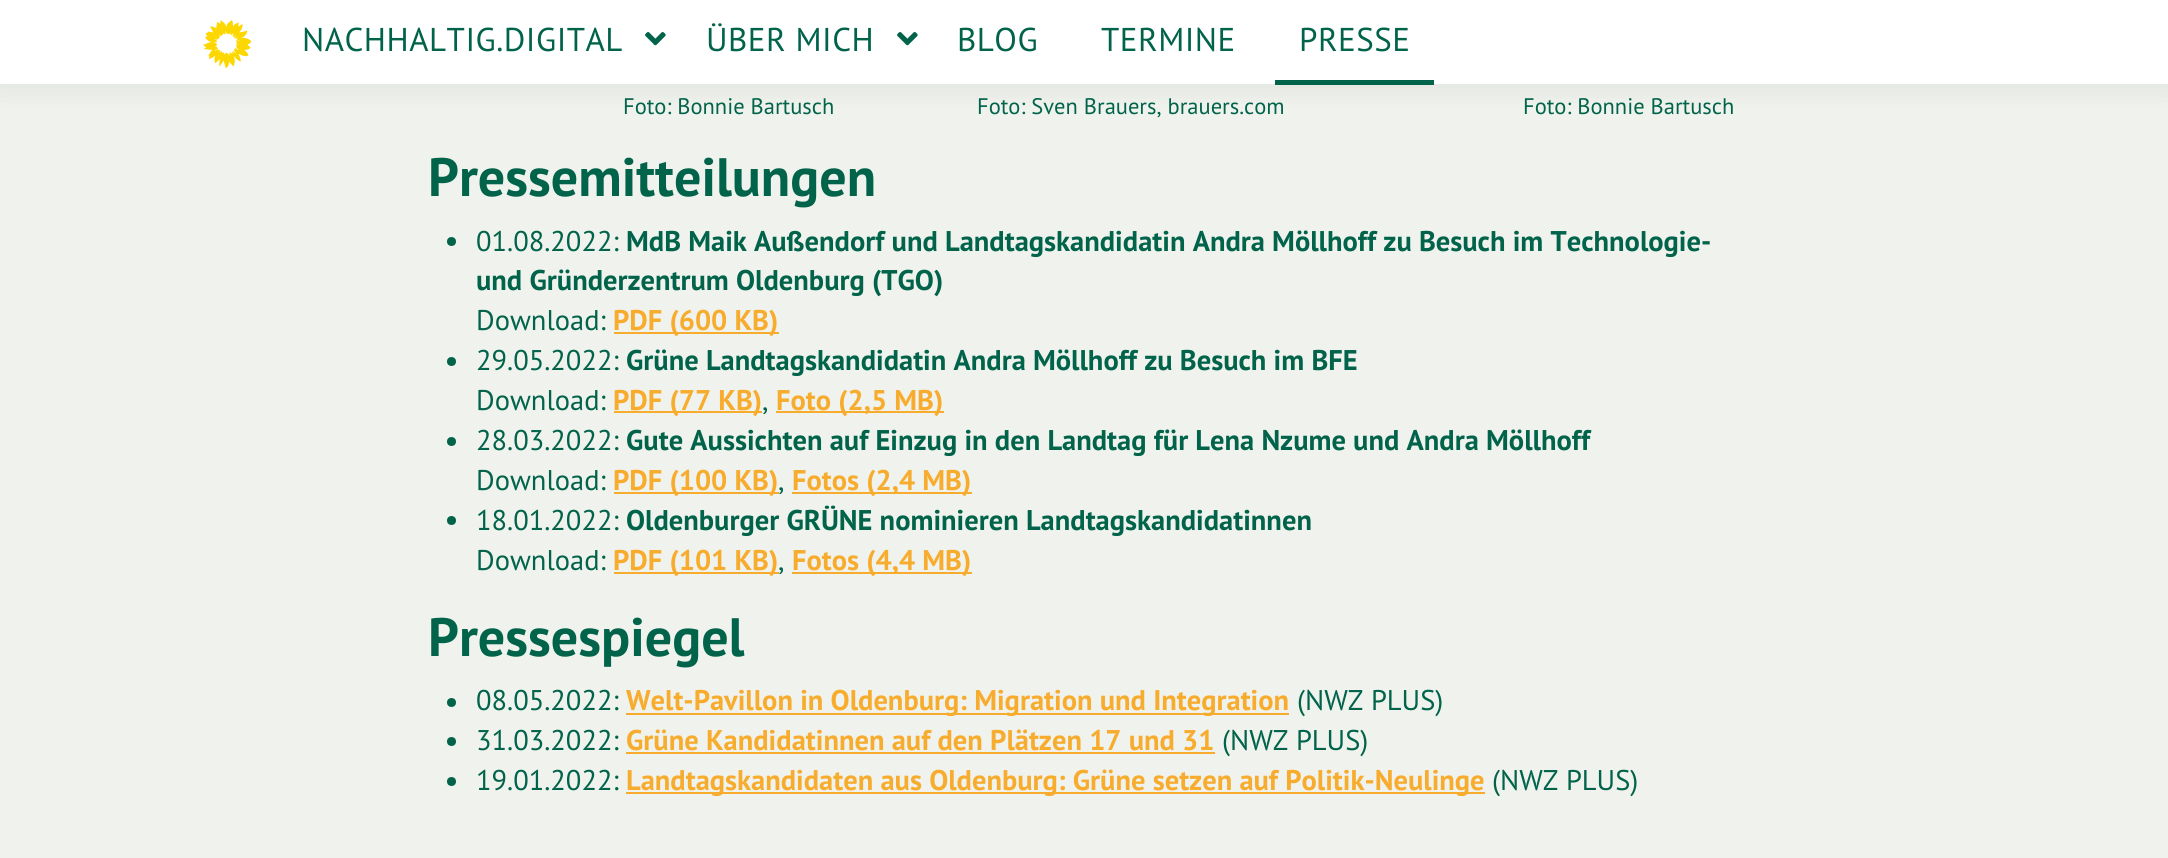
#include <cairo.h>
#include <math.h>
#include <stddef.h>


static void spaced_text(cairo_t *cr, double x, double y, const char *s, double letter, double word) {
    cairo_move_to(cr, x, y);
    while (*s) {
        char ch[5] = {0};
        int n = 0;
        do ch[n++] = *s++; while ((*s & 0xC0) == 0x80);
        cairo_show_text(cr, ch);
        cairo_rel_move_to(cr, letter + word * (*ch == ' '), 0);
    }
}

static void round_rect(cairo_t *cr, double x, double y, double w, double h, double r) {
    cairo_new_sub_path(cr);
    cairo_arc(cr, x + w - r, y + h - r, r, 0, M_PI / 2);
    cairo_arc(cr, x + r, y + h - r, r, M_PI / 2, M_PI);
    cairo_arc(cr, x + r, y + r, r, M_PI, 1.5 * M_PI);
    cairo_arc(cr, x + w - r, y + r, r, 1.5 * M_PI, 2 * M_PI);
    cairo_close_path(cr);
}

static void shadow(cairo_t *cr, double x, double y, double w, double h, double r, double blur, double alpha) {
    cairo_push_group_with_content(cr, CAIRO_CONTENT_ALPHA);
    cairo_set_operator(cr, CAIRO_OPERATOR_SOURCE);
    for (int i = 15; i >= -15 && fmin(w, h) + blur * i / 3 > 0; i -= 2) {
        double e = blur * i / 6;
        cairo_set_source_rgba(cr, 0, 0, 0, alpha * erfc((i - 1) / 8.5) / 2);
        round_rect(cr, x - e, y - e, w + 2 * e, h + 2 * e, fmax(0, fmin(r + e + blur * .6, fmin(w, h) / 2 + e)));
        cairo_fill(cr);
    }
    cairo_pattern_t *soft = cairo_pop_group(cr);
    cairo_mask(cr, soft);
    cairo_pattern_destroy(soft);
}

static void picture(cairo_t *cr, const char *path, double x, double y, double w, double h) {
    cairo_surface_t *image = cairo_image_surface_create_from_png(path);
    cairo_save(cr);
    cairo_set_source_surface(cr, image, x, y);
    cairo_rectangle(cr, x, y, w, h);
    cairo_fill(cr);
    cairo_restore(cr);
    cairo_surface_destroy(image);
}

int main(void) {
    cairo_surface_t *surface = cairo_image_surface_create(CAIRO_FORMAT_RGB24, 2168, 858);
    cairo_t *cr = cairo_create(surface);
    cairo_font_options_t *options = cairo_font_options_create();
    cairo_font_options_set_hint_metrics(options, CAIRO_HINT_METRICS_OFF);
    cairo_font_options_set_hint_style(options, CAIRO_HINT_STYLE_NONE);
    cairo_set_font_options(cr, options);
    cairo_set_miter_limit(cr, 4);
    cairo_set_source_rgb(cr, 0.937, 0.949, 0.929);
    cairo_paint(cr);
    cairo_set_source_rgb(cr, 0, 0, 0);
    shadow(cr, 0, 2, 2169, 84, 0, 15, 0.08);
    cairo_set_source_rgb(cr, 1, 1, 1);
    cairo_rectangle(cr, 0, 0, 2168, 84);
    cairo_fill(cr);
    picture(cr, "img1.png", 203, 20, 49, 49);
    cairo_select_font_face(cr, "PT Sans", CAIRO_FONT_SLANT_NORMAL, CAIRO_FONT_WEIGHT_NORMAL);
    cairo_set_font_size(cr, 33);
    cairo_set_source_rgb(cr, 0.004, 0.388, 0.29);
    spaced_text(cr, 302, 51, "NACHHALTIG.DIGITAL", 0.5, 0);
    picture(cr, "img2.png", 645, 32, 21, 14);
    spaced_text(cr, 706, 51, "ÜBER MICH", 0.5, 0);
    picture(cr, "img2.png", 897, 32, 21, 14);
    spaced_text(cr, 957, 51, "BLOG", 0.5, 0);
    spaced_text(cr, 1101, 51, "TERMINE", 0.5, 0);
    cairo_rectangle(cr, 1275, 80, 159, 5);
    cairo_fill(cr);
    spaced_text(cr, 1299, 51, "PRESSE", 0.5, 0);
    cairo_set_font_size(cr, 22.5);
    cairo_move_to(cr, 623, 114);
    cairo_show_text(cr, "Foto: Bonnie Bartusch");
    cairo_move_to(cr, 977, 114);
    cairo_show_text(cr, "Foto: Sven Brauers, brauers.com");
    cairo_move_to(cr, 1523, 114);
    cairo_show_text(cr, "Foto: Bonnie Bartusch");
    cairo_select_font_face(cr, "PT Sans", CAIRO_FONT_SLANT_NORMAL, CAIRO_FONT_WEIGHT_BOLD);
    cairo_set_font_size(cr, 54);
    cairo_move_to(cr, 428, 196);
    cairo_show_text(cr, "Pressemitteilungen");
    cairo_new_path(cr);
    cairo_arc(cr, 451.5, 241.5, 4.5, 0, 2 * M_PI);
    cairo_fill(cr);
    cairo_select_font_face(cr, "PT Sans", CAIRO_FONT_SLANT_NORMAL, CAIRO_FONT_WEIGHT_NORMAL);
    cairo_set_font_size(cr, 28.5);
    cairo_move_to(cr, 476, 251);
    cairo_show_text(cr, "01.08.2022:");
    cairo_select_font_face(cr, "PT Sans", CAIRO_FONT_SLANT_NORMAL, CAIRO_FONT_WEIGHT_BOLD);
    cairo_move_to(cr, 626, 251);
    cairo_show_text(cr, "MdB Maik Außendorf und Landtagskandidatin Andra Möllhoff zu Besuch im Technologie-");
    cairo_move_to(cr, 476, 290);
    cairo_show_text(cr, "und Gründerzentrum Oldenburg (TGO)");
    cairo_select_font_face(cr, "PT Sans", CAIRO_FONT_SLANT_NORMAL, CAIRO_FONT_WEIGHT_NORMAL);
    cairo_move_to(cr, 476, 330);
    cairo_show_text(cr, "Download:");
    cairo_set_source_rgb(cr, 0.969, 0.675, 0.176);
    cairo_rectangle(cr, 614, 332, 165, 2);
    cairo_fill(cr);
    cairo_select_font_face(cr, "PT Sans", CAIRO_FONT_SLANT_NORMAL, CAIRO_FONT_WEIGHT_BOLD);
    cairo_move_to(cr, 613, 330);
    cairo_show_text(cr, "PDF (600 KB)");
    cairo_set_source_rgb(cr, 0.004, 0.388, 0.29);
    cairo_new_path(cr);
    cairo_arc(cr, 451.5, 361.5, 4.5, 0, 2 * M_PI);
    cairo_fill(cr);
    cairo_select_font_face(cr, "PT Sans", CAIRO_FONT_SLANT_NORMAL, CAIRO_FONT_WEIGHT_NORMAL);
    cairo_move_to(cr, 476, 370);
    cairo_show_text(cr, "29.05.2022:");
    cairo_select_font_face(cr, "PT Sans", CAIRO_FONT_SLANT_NORMAL, CAIRO_FONT_WEIGHT_BOLD);
    cairo_move_to(cr, 626, 370);
    cairo_show_text(cr, "Grüne Landtagskandidatin Andra Möllhoff zu Besuch im BFE");
    cairo_select_font_face(cr, "PT Sans", CAIRO_FONT_SLANT_NORMAL, CAIRO_FONT_WEIGHT_NORMAL);
    cairo_move_to(cr, 476, 410);
    cairo_show_text(cr, "Download:");
    cairo_set_source_rgb(cr, 0.969, 0.675, 0.176);
    cairo_rectangle(cr, 614, 411, 148, 2);
    cairo_fill(cr);
    cairo_select_font_face(cr, "PT Sans", CAIRO_FONT_SLANT_NORMAL, CAIRO_FONT_WEIGHT_BOLD);
    cairo_move_to(cr, 613, 410);
    cairo_show_text(cr, "PDF (77 KB)");
    cairo_select_font_face(cr, "PT Sans", CAIRO_FONT_SLANT_NORMAL, CAIRO_FONT_WEIGHT_NORMAL);
    cairo_set_source_rgb(cr, 0.004, 0.388, 0.29);
    cairo_move_to(cr, 762, 410);
    cairo_show_text(cr, ",");
    cairo_set_source_rgb(cr, 0.969, 0.675, 0.176);
    cairo_rectangle(cr, 776, 411, 168, 2);
    cairo_fill(cr);
    cairo_select_font_face(cr, "PT Sans", CAIRO_FONT_SLANT_NORMAL, CAIRO_FONT_WEIGHT_BOLD);
    cairo_move_to(cr, 776, 410);
    cairo_show_text(cr, "Foto (2,5 MB)");
    cairo_set_source_rgb(cr, 0.004, 0.388, 0.29);
    cairo_new_path(cr);
    cairo_arc(cr, 451.5, 441.5, 4.5, 0, 2 * M_PI);
    cairo_fill(cr);
    cairo_select_font_face(cr, "PT Sans", CAIRO_FONT_SLANT_NORMAL, CAIRO_FONT_WEIGHT_NORMAL);
    cairo_move_to(cr, 476, 450);
    cairo_show_text(cr, "28.03.2022:");
    cairo_select_font_face(cr, "PT Sans", CAIRO_FONT_SLANT_NORMAL, CAIRO_FONT_WEIGHT_BOLD);
    cairo_move_to(cr, 626, 450);
    cairo_show_text(cr, "Gute Aussichten auf Einzug in den Landtag für Lena Nzume und Andra Möllhoff");
    cairo_select_font_face(cr, "PT Sans", CAIRO_FONT_SLANT_NORMAL, CAIRO_FONT_WEIGHT_NORMAL);
    cairo_move_to(cr, 476, 490);
    cairo_show_text(cr, "Download:");
    cairo_set_source_rgb(cr, 0.969, 0.675, 0.176);
    cairo_rectangle(cr, 614, 492, 165, 2);
    cairo_fill(cr);
    cairo_select_font_face(cr, "PT Sans", CAIRO_FONT_SLANT_NORMAL, CAIRO_FONT_WEIGHT_BOLD);
    cairo_move_to(cr, 613, 490);
    cairo_show_text(cr, "PDF (100 KB)");
    cairo_select_font_face(cr, "PT Sans", CAIRO_FONT_SLANT_NORMAL, CAIRO_FONT_WEIGHT_NORMAL);
    cairo_set_source_rgb(cr, 0.004, 0.388, 0.29);
    cairo_move_to(cr, 778, 490);
    cairo_show_text(cr, ",");
    cairo_set_source_rgb(cr, 0.969, 0.675, 0.176);
    cairo_rectangle(cr, 792, 492, 180, 2);
    cairo_fill(cr);
    cairo_select_font_face(cr, "PT Sans", CAIRO_FONT_SLANT_NORMAL, CAIRO_FONT_WEIGHT_BOLD);
    cairo_move_to(cr, 792, 490);
    cairo_show_text(cr, "Fotos (2,4 MB)");
    cairo_set_source_rgb(cr, 0.004, 0.388, 0.29);
    cairo_new_path(cr);
    cairo_arc(cr, 451.5, 520.5, 4.5, 0, 2 * M_PI);
    cairo_fill(cr);
    cairo_select_font_face(cr, "PT Sans", CAIRO_FONT_SLANT_NORMAL, CAIRO_FONT_WEIGHT_NORMAL);
    cairo_move_to(cr, 476, 530);
    cairo_show_text(cr, "18.01.2022:");
    cairo_select_font_face(cr, "PT Sans", CAIRO_FONT_SLANT_NORMAL, CAIRO_FONT_WEIGHT_BOLD);
    cairo_move_to(cr, 626, 530);
    cairo_show_text(cr, "Oldenburger GRÜNE nominieren Landtagskandidatinnen");
    cairo_select_font_face(cr, "PT Sans", CAIRO_FONT_SLANT_NORMAL, CAIRO_FONT_WEIGHT_NORMAL);
    cairo_move_to(cr, 476, 570);
    cairo_show_text(cr, "Download:");
    cairo_set_source_rgb(cr, 0.969, 0.675, 0.176);
    cairo_rectangle(cr, 614, 572, 165, 2);
    cairo_fill(cr);
    cairo_select_font_face(cr, "PT Sans", CAIRO_FONT_SLANT_NORMAL, CAIRO_FONT_WEIGHT_BOLD);
    cairo_move_to(cr, 613, 570);
    cairo_show_text(cr, "PDF (101 KB)");
    cairo_select_font_face(cr, "PT Sans", CAIRO_FONT_SLANT_NORMAL, CAIRO_FONT_WEIGHT_NORMAL);
    cairo_set_source_rgb(cr, 0.004, 0.388, 0.29);
    cairo_move_to(cr, 778, 570);
    cairo_show_text(cr, ",");
    cairo_set_source_rgb(cr, 0.969, 0.675, 0.176);
    cairo_rectangle(cr, 792, 572, 180, 2);
    cairo_fill(cr);
    cairo_select_font_face(cr, "PT Sans", CAIRO_FONT_SLANT_NORMAL, CAIRO_FONT_WEIGHT_BOLD);
    cairo_move_to(cr, 792, 570);
    cairo_show_text(cr, "Fotos (4,4 MB)");
    cairo_set_font_size(cr, 54);
    cairo_set_source_rgb(cr, 0.004, 0.388, 0.29);
    cairo_move_to(cr, 428, 656);
    cairo_show_text(cr, "Pressespiegel");
    cairo_new_path(cr);
    cairo_arc(cr, 451.5, 702.5, 4.5, 0, 2 * M_PI);
    cairo_fill(cr);
    cairo_select_font_face(cr, "PT Sans", CAIRO_FONT_SLANT_NORMAL, CAIRO_FONT_WEIGHT_NORMAL);
    cairo_set_font_size(cr, 28.5);
    cairo_move_to(cr, 476, 710);
    cairo_show_text(cr, "08.05.2022:");
    cairo_set_source_rgb(cr, 0.969, 0.675, 0.176);
    cairo_rectangle(cr, 626, 713, 663, 2);
    cairo_fill(cr);
    cairo_select_font_face(cr, "PT Sans", CAIRO_FONT_SLANT_NORMAL, CAIRO_FONT_WEIGHT_BOLD);
    cairo_move_to(cr, 626, 710);
    cairo_show_text(cr, "Welt-Pavillon in Oldenburg: Migration und Integration");
    cairo_select_font_face(cr, "PT Sans", CAIRO_FONT_SLANT_NORMAL, CAIRO_FONT_WEIGHT_NORMAL);
    cairo_set_source_rgb(cr, 0.004, 0.388, 0.29);
    cairo_move_to(cr, 1297, 710);
    cairo_show_text(cr, "(NWZ PLUS)");
    cairo_new_path(cr);
    cairo_arc(cr, 451.5, 741.5, 4.5, 0, 2 * M_PI);
    cairo_fill(cr);
    cairo_move_to(cr, 476, 750);
    cairo_show_text(cr, "31.03.2022:");
    cairo_select_font_face(cr, "PT Sans", CAIRO_FONT_SLANT_NORMAL, CAIRO_FONT_WEIGHT_BOLD);
    cairo_set_source_rgb(cr, 0.969, 0.675, 0.176);
    cairo_move_to(cr, 626, 750);
    cairo_show_text(cr, "Grüne Kandidatinnen auf den Plätzen 17 und 31");
    cairo_rectangle(cr, 626, 752, 589, 2);
    cairo_fill(cr);
    cairo_select_font_face(cr, "PT Sans", CAIRO_FONT_SLANT_NORMAL, CAIRO_FONT_WEIGHT_NORMAL);
    cairo_set_source_rgb(cr, 0.004, 0.388, 0.29);
    cairo_move_to(cr, 1222, 750);
    cairo_show_text(cr, "(NWZ PLUS)");
    cairo_new_path(cr);
    cairo_arc(cr, 451.5, 781.5, 4.5, 0, 2 * M_PI);
    cairo_fill(cr);
    cairo_move_to(cr, 476, 790);
    cairo_show_text(cr, "19.01.2022:");
    cairo_set_source_rgb(cr, 0.969, 0.675, 0.176);
    cairo_rectangle(cr, 626, 792, 859, 2);
    cairo_fill(cr);
    cairo_select_font_face(cr, "PT Sans", CAIRO_FONT_SLANT_NORMAL, CAIRO_FONT_WEIGHT_BOLD);
    cairo_move_to(cr, 626, 790);
    cairo_show_text(cr, "Landtagskandidaten aus Oldenburg: Grüne setzen auf Politik-Neulinge");
    cairo_select_font_face(cr, "PT Sans", CAIRO_FONT_SLANT_NORMAL, CAIRO_FONT_WEIGHT_NORMAL);
    cairo_set_source_rgb(cr, 0.004, 0.388, 0.29);
    cairo_move_to(cr, 1492, 790);
    cairo_show_text(cr, "(NWZ PLUS)");
    cairo_surface_write_to_png(surface, "page.png");
    cairo_font_options_destroy(options);
    cairo_destroy(cr);
    cairo_surface_destroy(surface);
    return 0;
}
